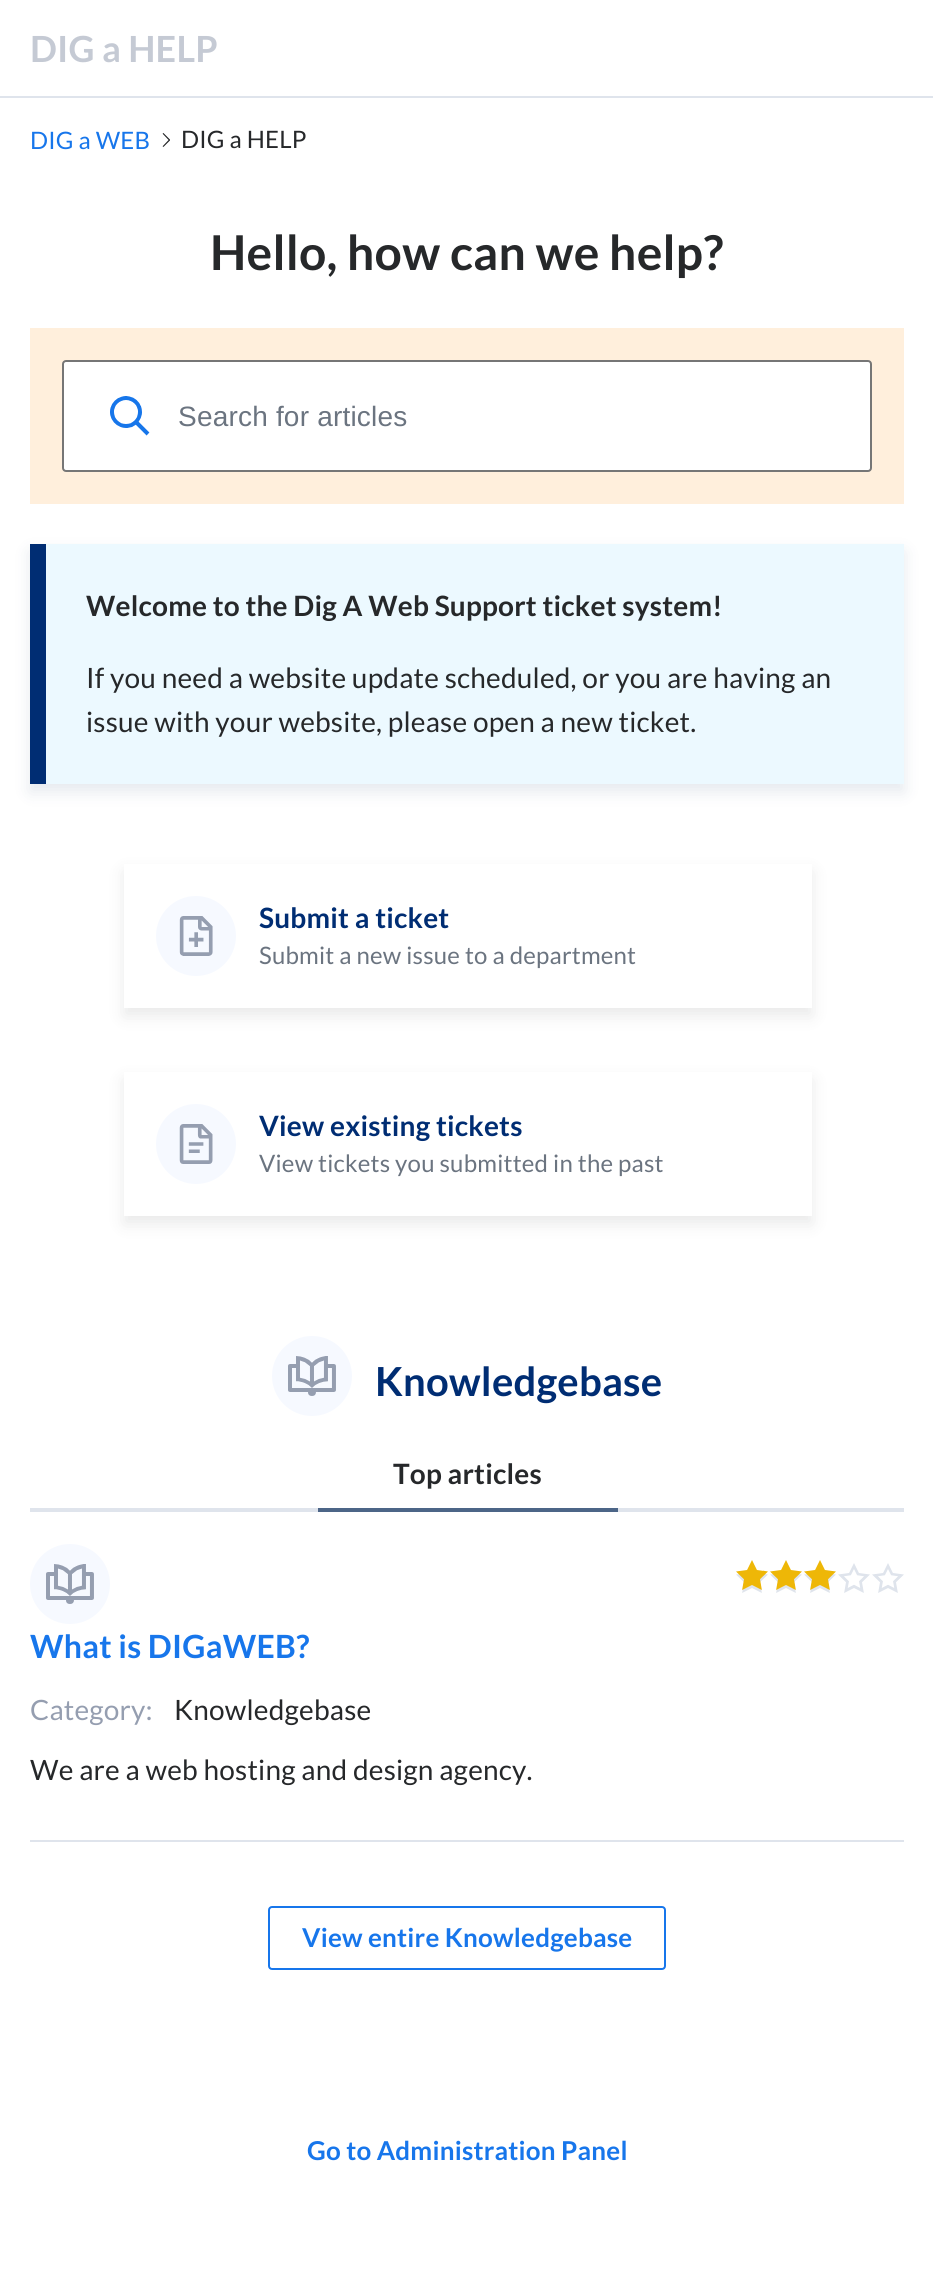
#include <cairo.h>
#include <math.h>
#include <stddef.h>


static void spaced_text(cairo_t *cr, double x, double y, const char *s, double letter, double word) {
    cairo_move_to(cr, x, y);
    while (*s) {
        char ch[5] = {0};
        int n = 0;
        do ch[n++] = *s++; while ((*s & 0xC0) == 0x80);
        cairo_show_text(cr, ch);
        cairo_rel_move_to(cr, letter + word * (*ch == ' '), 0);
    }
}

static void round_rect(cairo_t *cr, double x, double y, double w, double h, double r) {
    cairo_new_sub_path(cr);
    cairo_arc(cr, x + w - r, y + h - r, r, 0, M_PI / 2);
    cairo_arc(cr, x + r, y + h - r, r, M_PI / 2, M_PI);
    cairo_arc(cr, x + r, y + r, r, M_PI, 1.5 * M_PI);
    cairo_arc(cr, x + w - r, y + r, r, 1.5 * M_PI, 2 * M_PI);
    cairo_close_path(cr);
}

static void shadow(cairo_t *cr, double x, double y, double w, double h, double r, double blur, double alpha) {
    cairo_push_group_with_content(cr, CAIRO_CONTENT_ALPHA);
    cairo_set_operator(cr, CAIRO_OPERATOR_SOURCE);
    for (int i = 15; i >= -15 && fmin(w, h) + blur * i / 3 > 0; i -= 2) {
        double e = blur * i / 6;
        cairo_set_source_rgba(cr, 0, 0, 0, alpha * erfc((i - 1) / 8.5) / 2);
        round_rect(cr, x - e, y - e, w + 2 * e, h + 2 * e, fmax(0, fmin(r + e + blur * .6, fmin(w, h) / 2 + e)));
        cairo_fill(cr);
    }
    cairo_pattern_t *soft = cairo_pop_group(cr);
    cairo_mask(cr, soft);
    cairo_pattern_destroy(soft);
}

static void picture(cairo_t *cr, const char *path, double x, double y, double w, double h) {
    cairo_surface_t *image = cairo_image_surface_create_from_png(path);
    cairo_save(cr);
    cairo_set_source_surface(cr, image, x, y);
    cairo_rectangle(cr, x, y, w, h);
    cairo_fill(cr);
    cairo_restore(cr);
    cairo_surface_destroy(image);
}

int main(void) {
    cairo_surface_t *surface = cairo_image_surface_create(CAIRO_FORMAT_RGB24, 933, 2293);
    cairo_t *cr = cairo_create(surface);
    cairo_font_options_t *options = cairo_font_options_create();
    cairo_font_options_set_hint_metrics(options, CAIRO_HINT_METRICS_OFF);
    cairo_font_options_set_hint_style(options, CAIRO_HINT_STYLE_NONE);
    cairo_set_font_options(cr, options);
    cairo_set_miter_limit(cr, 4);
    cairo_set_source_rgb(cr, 1, 1, 1);
    cairo_paint(cr);
    cairo_set_source_rgb(cr, 0.875, 0.894, 0.925);
    cairo_rectangle(cr, 0, 96, 933, 2);
    cairo_fill(cr);
    cairo_select_font_face(cr, "Lato", CAIRO_FONT_SLANT_NORMAL, CAIRO_FONT_WEIGHT_BOLD);
    cairo_set_font_size(cr, 36);
    cairo_set_source_rgb(cr, 0.773, 0.792, 0.831);
    spaced_text(cr, 30, 62, "DIG a HELP", 0.2, 0);
    cairo_select_font_face(cr, "Lato", CAIRO_FONT_SLANT_NORMAL, CAIRO_FONT_WEIGHT_NORMAL);
    cairo_set_font_size(cr, 24);
    cairo_set_source_rgb(cr, 0.09, 0.463, 0.918);
    spaced_text(cr, 30, 149, "DIG a WEB", 0.2, 0);
    picture(cr, "img1.png", 162, 133, 8, 14);
    cairo_set_source_rgb(cr, 0.149, 0.157, 0.165);
    spaced_text(cr, 181, 148, "DIG a HELP", 0.2, 0);
    cairo_select_font_face(cr, "Lato", CAIRO_FONT_SLANT_NORMAL, CAIRO_FONT_WEIGHT_BOLD);
    cairo_set_font_size(cr, 48);
    spaced_text(cr, 210, 270, "Hello, how can we help?", 0.25, 0);
    cairo_set_source_rgb(cr, 1, 0.937, 0.863);
    cairo_rectangle(cr, 30, 328, 874, 176);
    cairo_fill(cr);
    cairo_set_source_rgb(cr, 1, 1, 1);
    round_rect(cr, 63, 361, 808, 110, 3);
    cairo_fill_preserve(cr);
    cairo_set_source_rgb(cr, 0.463, 0.463, 0.463);
    cairo_stroke(cr);
    picture(cr, "img2.png", 110, 396, 40, 40);
    cairo_select_font_face(cr, "Liberation Sans", CAIRO_FONT_SLANT_NORMAL, CAIRO_FONT_WEIGHT_NORMAL);
    cairo_set_font_size(cr, 28);
    cairo_set_source_rgb(cr, 0.42, 0.455, 0.502);
    spaced_text(cr, 178, 426, "Search for articles", 0.2, 0);
    cairo_set_source_rgb(cr, 0, 0.161, 0.349);
    shadow(cr, 30, 552, 874, 240, 0, 8, 0.1);
    cairo_set_source_rgb(cr, 0.922, 0.973, 1);
    cairo_rectangle(cr, 46, 544, 858, 240);
    cairo_fill(cr);
    cairo_set_source_rgb(cr, 0, 0.176, 0.451);
    cairo_rectangle(cr, 30, 544, 16, 240);
    cairo_fill(cr);
    cairo_select_font_face(cr, "Lato", CAIRO_FONT_SLANT_NORMAL, CAIRO_FONT_WEIGHT_BOLD);
    cairo_set_source_rgb(cr, 0.149, 0.157, 0.165);
    spaced_text(cr, 86, 616, "Welcome to the Dig A Web Support ticket system!", 0.2, 0);
    cairo_select_font_face(cr, "Lato", CAIRO_FONT_SLANT_NORMAL, CAIRO_FONT_WEIGHT_NORMAL);
    spaced_text(cr, 86, 688, "If you need a website update scheduled, or you are having an", 0.2, 0);
    spaced_text(cr, 86, 732, "issue with your website, please open a new ticket.", 0.2, 0);
    cairo_save(cr);
    cairo_set_fill_rule(cr, CAIRO_FILL_RULE_EVEN_ODD);
    cairo_new_path(cr);
    cairo_move_to(cr, 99, 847);
    cairo_line_to(cr, 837, 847);
    cairo_line_to(cr, 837, 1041);
    cairo_line_to(cr, 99, 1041);
    cairo_close_path(cr);
    cairo_move_to(cr, 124, 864);
    cairo_line_to(cr, 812, 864);
    cairo_line_to(cr, 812, 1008);
    cairo_line_to(cr, 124, 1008);
    cairo_close_path(cr);
    cairo_clip(cr);
    cairo_set_source_rgb(cr, 0.149, 0.157, 0.165);
    shadow(cr, 124, 872, 688, 144, 0, 8, 0.1);
    cairo_restore(cr);
    cairo_set_source_rgb(cr, 0.961, 0.973, 1);
    cairo_arc(cr, 196, 936, 40, 0, 2 * M_PI);
    cairo_fill(cr);
    picture(cr, "img3.png", 179, 916, 34, 40);
    cairo_select_font_face(cr, "Lato", CAIRO_FONT_SLANT_NORMAL, CAIRO_FONT_WEIGHT_BOLD);
    cairo_set_source_rgb(cr, 0, 0.176, 0.451);
    spaced_text(cr, 259, 928, "Submit a ticket", 0.2, 0);
    cairo_select_font_face(cr, "Lato", CAIRO_FONT_SLANT_NORMAL, CAIRO_FONT_WEIGHT_NORMAL);
    cairo_set_font_size(cr, 24);
    cairo_set_source_rgb(cr, 0.42, 0.455, 0.502);
    spaced_text(cr, 259, 964, "Submit a new issue to a department", 0.2, 0);
    cairo_save(cr);
    cairo_set_fill_rule(cr, CAIRO_FILL_RULE_EVEN_ODD);
    cairo_new_path(cr);
    cairo_move_to(cr, 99, 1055);
    cairo_line_to(cr, 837, 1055);
    cairo_line_to(cr, 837, 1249);
    cairo_line_to(cr, 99, 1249);
    cairo_close_path(cr);
    cairo_move_to(cr, 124, 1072);
    cairo_line_to(cr, 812, 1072);
    cairo_line_to(cr, 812, 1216);
    cairo_line_to(cr, 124, 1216);
    cairo_close_path(cr);
    cairo_clip(cr);
    cairo_set_source_rgb(cr, 0.149, 0.157, 0.165);
    shadow(cr, 124, 1080, 688, 144, 0, 8, 0.1);
    cairo_restore(cr);
    cairo_set_source_rgb(cr, 0.961, 0.973, 1);
    cairo_arc(cr, 196, 1144, 40, 0, 2 * M_PI);
    cairo_fill(cr);
    picture(cr, "img4.png", 179, 1124, 34, 40);
    cairo_select_font_face(cr, "Lato", CAIRO_FONT_SLANT_NORMAL, CAIRO_FONT_WEIGHT_BOLD);
    cairo_set_font_size(cr, 28);
    cairo_set_source_rgb(cr, 0, 0.176, 0.451);
    spaced_text(cr, 259, 1136, "View existing tickets", 0.2, 0);
    cairo_select_font_face(cr, "Lato", CAIRO_FONT_SLANT_NORMAL, CAIRO_FONT_WEIGHT_NORMAL);
    cairo_set_font_size(cr, 24);
    cairo_set_source_rgb(cr, 0.42, 0.455, 0.502);
    spaced_text(cr, 259, 1172, "View tickets you submitted in the past", 0.2, 0);
    cairo_set_source_rgb(cr, 0.961, 0.973, 1);
    cairo_new_path(cr);
    cairo_arc(cr, 312, 1376, 40, 0, 2 * M_PI);
    cairo_fill(cr);
    picture(cr, "img5.png", 288, 1356, 48, 40);
    cairo_select_font_face(cr, "Lato", CAIRO_FONT_SLANT_NORMAL, CAIRO_FONT_WEIGHT_BOLD);
    cairo_set_font_size(cr, 40);
    cairo_set_source_rgb(cr, 0, 0.176, 0.451);
    spaced_text(cr, 375, 1396, "Knowledgebase", 0.2, 0);
    cairo_set_source_rgb(cr, 0.875, 0.894, 0.925);
    cairo_rectangle(cr, 30, 1508, 874, 4);
    cairo_fill(cr);
    cairo_set_source_rgb(cr, 0.298, 0.396, 0.529);
    cairo_rectangle(cr, 318, 1508, 300, 4);
    cairo_fill(cr);
    cairo_set_font_size(cr, 28);
    cairo_set_source_rgb(cr, 0.149, 0.157, 0.165);
    spaced_text(cr, 393, 1484, "Top articles", 0.2, 0);
    cairo_set_source_rgb(cr, 0.875, 0.894, 0.925);
    cairo_rectangle(cr, 30, 1840, 874, 2);
    cairo_fill(cr);
    cairo_set_source_rgb(cr, 0.961, 0.973, 1);
    cairo_arc(cr, 70, 1584, 40, 0, 2 * M_PI);
    cairo_fill(cr);
    picture(cr, "img5.png", 46, 1564, 48, 40);
    picture(cr, "img7.png", 736, 1563, 168, 30);
    picture(cr, "img6.png", 736, 1560, 100, 30);
    cairo_set_font_size(cr, 32);
    cairo_set_source_rgb(cr, 0.09, 0.463, 0.918);
    spaced_text(cr, 30, 1658, "What is DIGaWEB?", 0.25, 0);
    cairo_select_font_face(cr, "Lato", CAIRO_FONT_SLANT_NORMAL, CAIRO_FONT_WEIGHT_NORMAL);
    cairo_set_font_size(cr, 28);
    cairo_set_source_rgb(cr, 0.584, 0.62, 0.69);
    spaced_text(cr, 30, 1720, "Category:", 0.2, 0);
    cairo_set_source_rgb(cr, 0.149, 0.157, 0.165);
    spaced_text(cr, 174, 1720, "Knowledgebase", 0.2, 0);
    spaced_text(cr, 30, 1780, "We are a web hosting and design agency.", 0.2, 0);
    round_rect(cr, 269, 1907, 396, 62, 3);
    cairo_set_source_rgb(cr, 0.09, 0.463, 0.918);
    cairo_stroke(cr);
    cairo_select_font_face(cr, "Lato", CAIRO_FONT_SLANT_NORMAL, CAIRO_FONT_WEIGHT_BOLD);
    cairo_set_font_size(cr, 26);
    spaced_text(cr, 302, 1947, "View entire Knowledgebase", 0.2, 0);
    spaced_text(cr, 307, 2160, "Go to Administration Panel", 0.2, 0);
    cairo_surface_write_to_png(surface, "page.png");
    cairo_font_options_destroy(options);
    cairo_destroy(cr);
    cairo_surface_destroy(surface);
    return 0;
}
